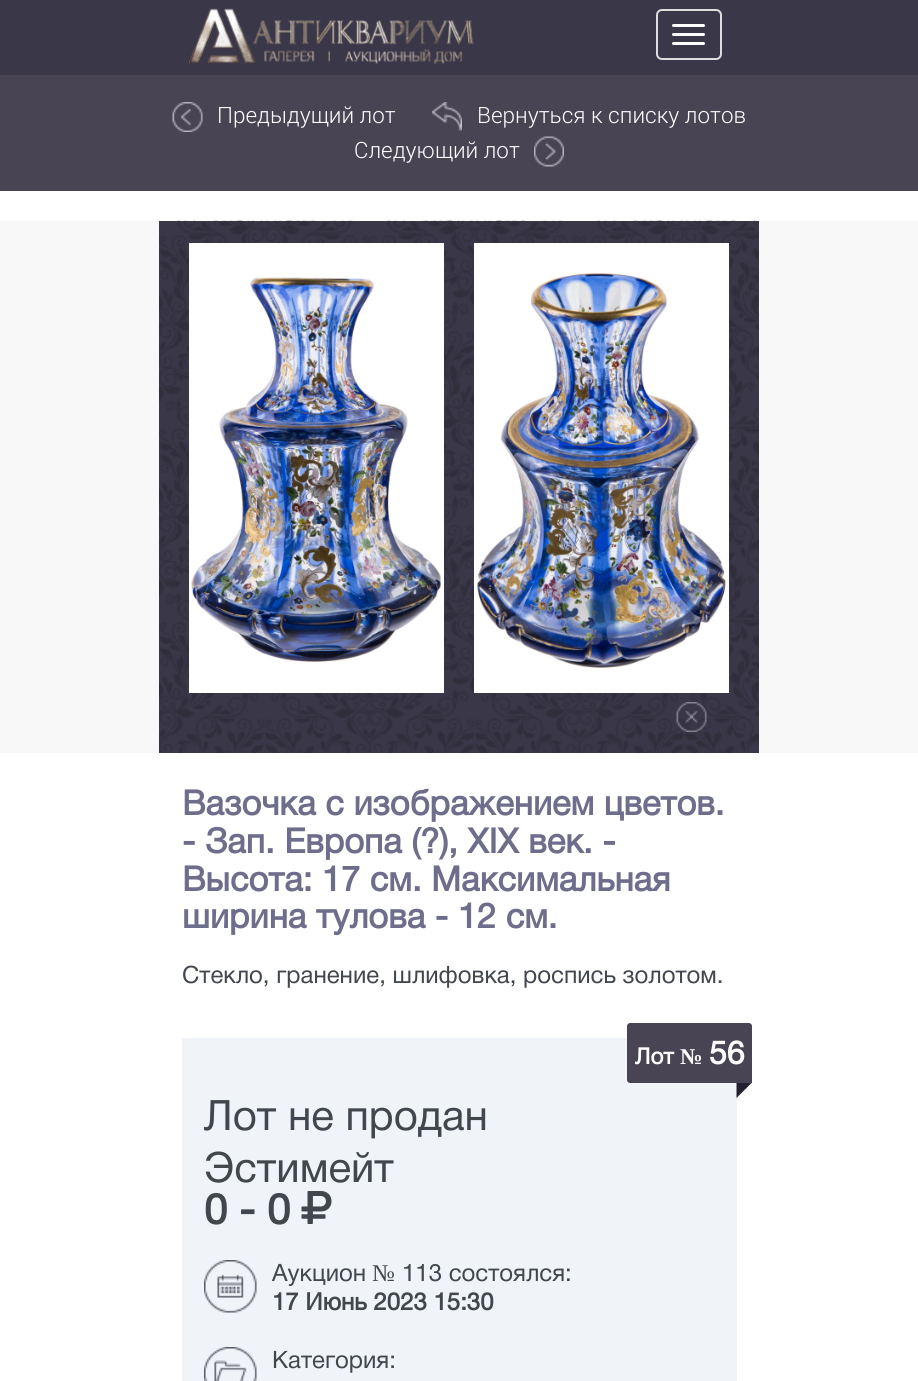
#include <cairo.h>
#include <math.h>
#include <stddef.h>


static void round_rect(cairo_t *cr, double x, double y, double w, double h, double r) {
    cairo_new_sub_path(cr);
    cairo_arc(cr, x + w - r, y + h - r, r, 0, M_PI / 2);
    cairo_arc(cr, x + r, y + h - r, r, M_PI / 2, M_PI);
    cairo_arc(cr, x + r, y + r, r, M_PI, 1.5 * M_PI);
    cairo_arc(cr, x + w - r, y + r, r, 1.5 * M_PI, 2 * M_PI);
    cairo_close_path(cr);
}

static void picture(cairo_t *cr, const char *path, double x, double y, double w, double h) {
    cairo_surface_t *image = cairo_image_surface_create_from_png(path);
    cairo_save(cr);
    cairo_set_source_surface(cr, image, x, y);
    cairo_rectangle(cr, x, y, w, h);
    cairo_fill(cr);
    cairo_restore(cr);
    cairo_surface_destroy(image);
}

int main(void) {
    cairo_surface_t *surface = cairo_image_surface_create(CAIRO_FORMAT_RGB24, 918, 1381);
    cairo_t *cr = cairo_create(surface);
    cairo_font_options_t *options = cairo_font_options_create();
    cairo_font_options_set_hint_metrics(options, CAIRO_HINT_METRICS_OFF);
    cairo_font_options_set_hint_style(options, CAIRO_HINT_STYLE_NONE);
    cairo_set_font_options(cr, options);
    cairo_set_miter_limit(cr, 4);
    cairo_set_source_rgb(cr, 1, 1, 1);
    cairo_paint(cr);
    cairo_set_source_rgb(cr, 0.227, 0.216, 0.286);
    cairo_rectangle(cr, 0, 0, 918, 75);
    cairo_fill(cr);
    picture(cr, "img1.png", 189, 8, 285, 56);
    round_rect(cr, 657, 10, 64, 49, 5);
    cairo_set_source_rgb(cr, 0.867, 0.867, 0.867);
    cairo_stroke(cr);
    cairo_set_source_rgb(cr, 1, 1, 1);
    round_rect(cr, 672, 24, 33, 3, 1.5);
    cairo_fill(cr);
    round_rect(cr, 672, 33, 33, 3, 1.5);
    cairo_fill(cr);
    round_rect(cr, 672, 42, 33, 3, 1.5);
    cairo_fill(cr);
    cairo_set_source_rgb(cr, 0.282, 0.267, 0.329);
    cairo_rectangle(cr, 0, 75, 918, 116);
    cairo_fill(cr);
    picture(cr, "img2.png", 172, 102, 31, 30);
    cairo_select_font_face(cr, "Roboto Light", CAIRO_FONT_SLANT_NORMAL, CAIRO_FONT_WEIGHT_NORMAL);
    cairo_set_font_size(cr, 22.5);
    cairo_set_source_rgb(cr, 1, 1, 1);
    cairo_move_to(cr, 217, 123);
    cairo_show_text(cr, "Предыдущий лот");
    picture(cr, "img3.png", 432, 102, 30, 29);
    cairo_move_to(cr, 477, 123);
    cairo_show_text(cr, "Вернуться к списку лотов");
    cairo_move_to(cr, 354, 158);
    cairo_show_text(cr, "Следующий лот");
    picture(cr, "img4.png", 534, 136, 30, 31);
    cairo_set_source_rgb(cr, 0.973, 0.969, 0.973);
    cairo_rectangle(cr, 0, 221, 918, 532);
    cairo_fill(cr);
    cairo_set_source_rgb(cr, 0.227, 0.216, 0.286);
    cairo_rectangle(cr, 159, 221, 600, 532);
    cairo_fill(cr);
    picture(cr, "img5.png", 159, 220, 600, 533);
    cairo_set_source_rgb(cr, 1, 1, 1);
    cairo_rectangle(cr, 189, 243, 255, 450);
    cairo_fill(cr);
    picture(cr, "img6.png", 191, 276, 250, 387);
    cairo_rectangle(cr, 474, 243, 255, 450);
    cairo_fill(cr);
    picture(cr, "img7.png", 477, 272, 249, 396);
    picture(cr, "img8.png", 676, 702, 31, 30);
    cairo_select_font_face(cr, "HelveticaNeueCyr", CAIRO_FONT_SLANT_NORMAL, CAIRO_FONT_WEIGHT_BOLD);
    cairo_set_font_size(cr, 34.5);
    cairo_set_source_rgb(cr, 0.431, 0.431, 0.549);
    cairo_move_to(cr, 182, 815);
    cairo_show_text(cr, "Вазочка с изображением цветов.");
    cairo_move_to(cr, 182, 853);
    cairo_show_text(cr, "- Зап. Европа (?), XIX век. -");
    cairo_move_to(cr, 182, 891);
    cairo_show_text(cr, "Высота: 17 см. Максимальная");
    cairo_move_to(cr, 182, 928);
    cairo_show_text(cr, "ширина тулова - 12 см.");
    cairo_select_font_face(cr, "HelveticaNeueCyr", CAIRO_FONT_SLANT_NORMAL, CAIRO_FONT_WEIGHT_NORMAL);
    cairo_set_font_size(cr, 24);
    cairo_set_source_rgb(cr, 0.259, 0.278, 0.31);
    cairo_move_to(cr, 182, 983);
    cairo_show_text(cr, "Стекло, гранение, шлифовка, роспись золотом.");
    cairo_set_source_rgb(cr, 0.941, 0.953, 0.965);
    cairo_rectangle(cr, 182, 1038, 555, 343);
    cairo_fill(cr);
    cairo_set_source_rgb(cr, 0.282, 0.267, 0.329);
    cairo_new_path(cr);
    cairo_move_to(cr, 630, 1023);
    cairo_line_to(cr, 749, 1023);
    cairo_curve_to(cr, 750.5, 1023, 752, 1024.5, 752, 1026);
    cairo_line_to(cr, 752, 1083);
    cairo_line_to(cr, 630, 1083);
    cairo_curve_to(cr, 628.5, 1083, 627, 1081.5, 627, 1080);
    cairo_line_to(cr, 627, 1026);
    cairo_curve_to(cr, 627, 1024.5, 628.5, 1023, 630, 1023);
    cairo_close_path(cr);
    cairo_fill(cr);
    cairo_select_font_face(cr, "HelveticaNeueCyr", CAIRO_FONT_SLANT_NORMAL, CAIRO_FONT_WEIGHT_BOLD);
    cairo_set_font_size(cr, 22.5);
    cairo_set_source_rgb(cr, 1, 1, 1);
    cairo_move_to(cr, 635, 1064);
    cairo_show_text(cr, "Лот");
    cairo_select_font_face(cr, "Liberation Serif", CAIRO_FONT_SLANT_NORMAL, CAIRO_FONT_WEIGHT_BOLD);
    cairo_move_to(cr, 680, 1064);
    cairo_show_text(cr, "№");
    cairo_select_font_face(cr, "HelveticaNeueCyr", CAIRO_FONT_SLANT_NORMAL, CAIRO_FONT_WEIGHT_BOLD);
    cairo_set_font_size(cr, 32);
    cairo_move_to(cr, 709, 1064);
    cairo_show_text(cr, "56");
    cairo_set_source_rgb(cr, 0.137, 0.129, 0.188);
    cairo_new_path(cr);
    cairo_move_to(cr, 736.5, 1083);
    cairo_line_to(cr, 751.5, 1083);
    cairo_line_to(cr, 736.5, 1098);
    cairo_close_path(cr);
    cairo_fill(cr);
    cairo_select_font_face(cr, "HelveticaNeueCyr", CAIRO_FONT_SLANT_NORMAL, CAIRO_FONT_WEIGHT_NORMAL);
    cairo_set_font_size(cr, 42);
    cairo_set_source_rgb(cr, 0.259, 0.278, 0.31);
    cairo_move_to(cr, 204, 1130);
    cairo_show_text(cr, "Лот не продан");
    cairo_move_to(cr, 204, 1182);
    cairo_show_text(cr, "Эстимейт");
    cairo_select_font_face(cr, "HelveticaNeueCyr", CAIRO_FONT_SLANT_NORMAL, CAIRO_FONT_WEIGHT_BOLD);
    cairo_move_to(cr, 204, 1224);
    cairo_show_text(cr, "0 - 0");
    picture(cr, "img9.png", 301, 1191, 31, 33);
    picture(cr, "img10.png", 204, 1260, 53, 53);
    cairo_select_font_face(cr, "HelveticaNeueCyr", CAIRO_FONT_SLANT_NORMAL, CAIRO_FONT_WEIGHT_NORMAL);
    cairo_set_font_size(cr, 24);
    cairo_move_to(cr, 272, 1281);
    cairo_show_text(cr, "Аукцион");
    cairo_select_font_face(cr, "Liberation Serif", CAIRO_FONT_SLANT_NORMAL, CAIRO_FONT_WEIGHT_NORMAL);
    cairo_move_to(cr, 372, 1281);
    cairo_show_text(cr, "№");
    cairo_select_font_face(cr, "HelveticaNeueCyr", CAIRO_FONT_SLANT_NORMAL, CAIRO_FONT_WEIGHT_NORMAL);
    cairo_move_to(cr, 402, 1281);
    cairo_show_text(cr, "113 состоялся:");
    cairo_select_font_face(cr, "HelveticaNeueCyr", CAIRO_FONT_SLANT_NORMAL, CAIRO_FONT_WEIGHT_BOLD);
    cairo_move_to(cr, 272, 1310);
    cairo_show_text(cr, "17 Июнь 2023 15:30");
    picture(cr, "img11.png", 204, 1347, 53, 34);
    cairo_select_font_face(cr, "HelveticaNeueCyr", CAIRO_FONT_SLANT_NORMAL, CAIRO_FONT_WEIGHT_NORMAL);
    cairo_move_to(cr, 272, 1368);
    cairo_show_text(cr, "Категория:");
    cairo_surface_write_to_png(surface, "page.png");
    cairo_font_options_destroy(options);
    cairo_destroy(cr);
    cairo_surface_destroy(surface);
    return 0;
}
